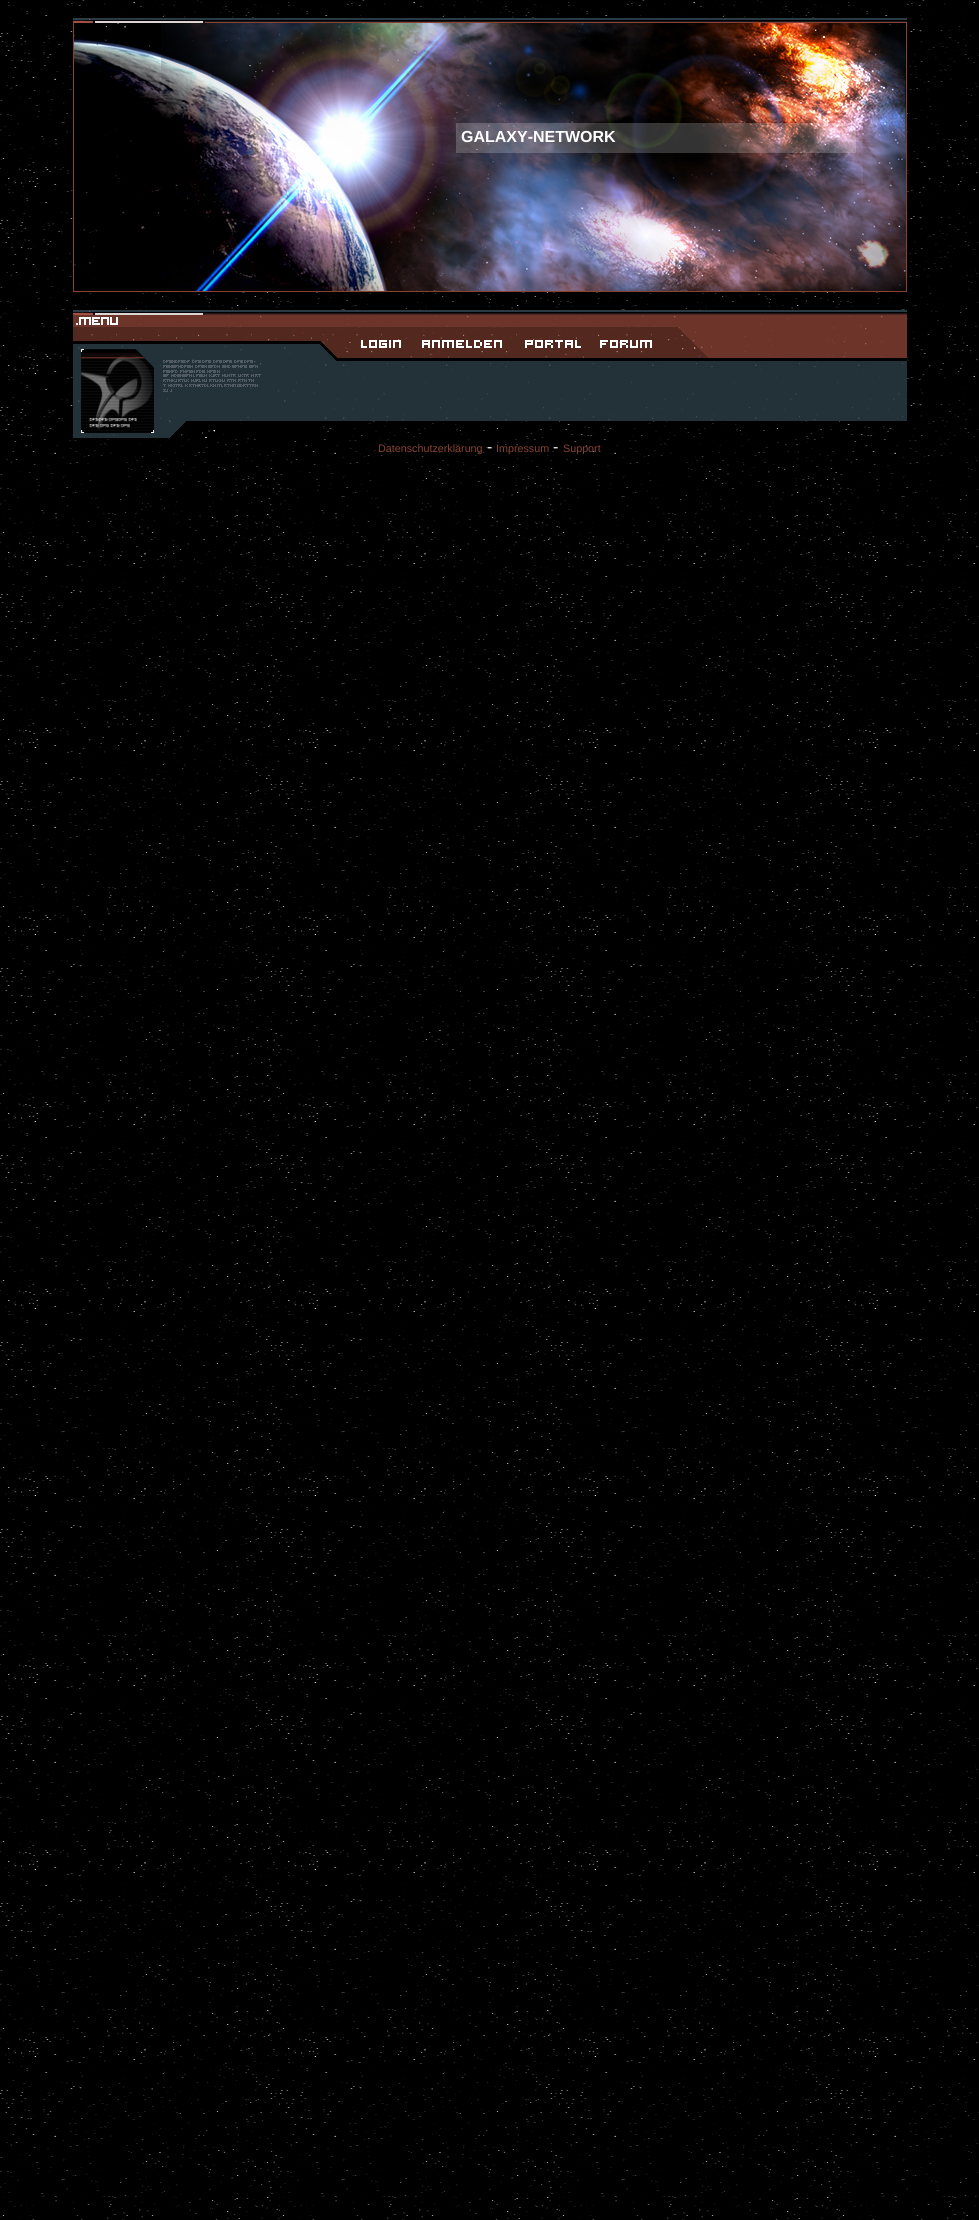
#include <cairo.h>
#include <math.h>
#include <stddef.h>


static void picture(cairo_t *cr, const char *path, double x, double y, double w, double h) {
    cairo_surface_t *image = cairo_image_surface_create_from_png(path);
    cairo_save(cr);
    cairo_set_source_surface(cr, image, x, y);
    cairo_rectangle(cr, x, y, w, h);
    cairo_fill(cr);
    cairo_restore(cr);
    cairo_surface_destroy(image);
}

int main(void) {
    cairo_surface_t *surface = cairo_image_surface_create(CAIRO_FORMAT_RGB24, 979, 2220);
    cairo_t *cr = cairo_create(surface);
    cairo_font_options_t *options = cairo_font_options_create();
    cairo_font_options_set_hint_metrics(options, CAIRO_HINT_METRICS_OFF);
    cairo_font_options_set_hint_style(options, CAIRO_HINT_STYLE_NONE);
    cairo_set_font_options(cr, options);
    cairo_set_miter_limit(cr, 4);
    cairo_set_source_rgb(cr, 1, 1, 1);
    cairo_paint(cr);
    picture(cr, "img1.png", 0, 0, 979, 2220);
    cairo_set_source_rgb(cr, 0.533, 0.259, 0.2);
    cairo_rectangle(cr, 73, 22, 834, 270);
    cairo_fill(cr);
    picture(cr, "img2.png", 205, 18, 702, 4);
    picture(cr, "img3.png", 73, 18, 132, 5);
    picture(cr, "img4.png", 74, 23, 832, 268);
    cairo_set_source_rgba(cr, 1, 1, 1, 0.2);
    cairo_rectangle(cr, 456, 123, 400, 30);
    cairo_fill(cr);
    cairo_select_font_face(cr, "Liberation Sans", CAIRO_FONT_SLANT_NORMAL, CAIRO_FONT_WEIGHT_BOLD);
    cairo_set_font_size(cr, 16);
    cairo_set_source_rgb(cr, 1, 1, 1);
    cairo_move_to(cr, 461, 142);
    cairo_show_text(cr, "GALAXY-NETWORK");
    cairo_set_source_rgb(cr, 0.302, 0.149, 0.114);
    cairo_rectangle(cr, 205, 314, 702, 1);
    cairo_fill(cr);
    picture(cr, "img2.png", 205, 310, 702, 4);
    picture(cr, "img3.png", 73, 310, 132, 5);
    picture(cr, "img5.png", 73, 315, 834, 12);
    picture(cr, "img6.png", 76, 317, 42, 8);
    picture(cr, "img7.png", 73, 327, 247, 14);
    cairo_set_source_rgb(cr, 0, 0, 0);
    cairo_rectangle(cr, 114, 341, 134, 3);
    cairo_fill(cr);
    picture(cr, "img8.png", 73, 344, 247, 94);
    picture(cr, "img9.png", 81, 349, 73, 84);
    picture(cr, "img10.png", 163, 359, 106, 79);
    cairo_rectangle(cr, 269, 421, 51, 17);
    cairo_fill(cr);
    picture(cr, "img11.png", 320, 327, 18, 34);
    picture(cr, "img12.png", 338, 327, 340, 31);
    picture(cr, "img13.png", 361, 340, 40, 8);
    picture(cr, "img14.png", 422, 340, 80, 8);
    picture(cr, "img15.png", 525, 340, 56, 8);
    picture(cr, "img16.png", 600, 340, 52, 8);
    picture(cr, "img17.png", 712, 327, 195, 31);
    picture(cr, "img18.png", 678, 327, 34, 31);
    cairo_rectangle(cr, 347, 358, 544, 3);
    cairo_fill(cr);
    picture(cr, "img19.png", 320, 361, 18, 60);
    picture(cr, "img20.png", 338, 361, 569, 60);
    cairo_select_font_face(cr, "Liberation Sans", CAIRO_FONT_SLANT_NORMAL, CAIRO_FONT_WEIGHT_NORMAL);
    cairo_set_font_size(cr, 10.75);
    cairo_set_source_rgb(cr, 0.533, 0.259, 0.2);
    cairo_move_to(cr, 378, 452);
    cairo_show_text(cr, "Datenschutzerklärung");
    cairo_set_font_size(cr, 16);
    cairo_set_source_rgb(cr, 1, 1, 1);
    cairo_move_to(cr, 487, 452);
    cairo_show_text(cr, "-");
    cairo_set_font_size(cr, 10.75);
    cairo_set_source_rgb(cr, 0.533, 0.259, 0.2);
    cairo_move_to(cr, 496, 452);
    cairo_show_text(cr, "Impressum");
    cairo_set_font_size(cr, 16);
    cairo_set_source_rgb(cr, 1, 1, 1);
    cairo_move_to(cr, 553, 452);
    cairo_show_text(cr, "-");
    cairo_set_font_size(cr, 10.75);
    cairo_set_source_rgb(cr, 0.533, 0.259, 0.2);
    cairo_move_to(cr, 563, 452);
    cairo_show_text(cr, "Support");
    cairo_surface_write_to_png(surface, "page.png");
    cairo_font_options_destroy(options);
    cairo_destroy(cr);
    cairo_surface_destroy(surface);
    return 0;
}
